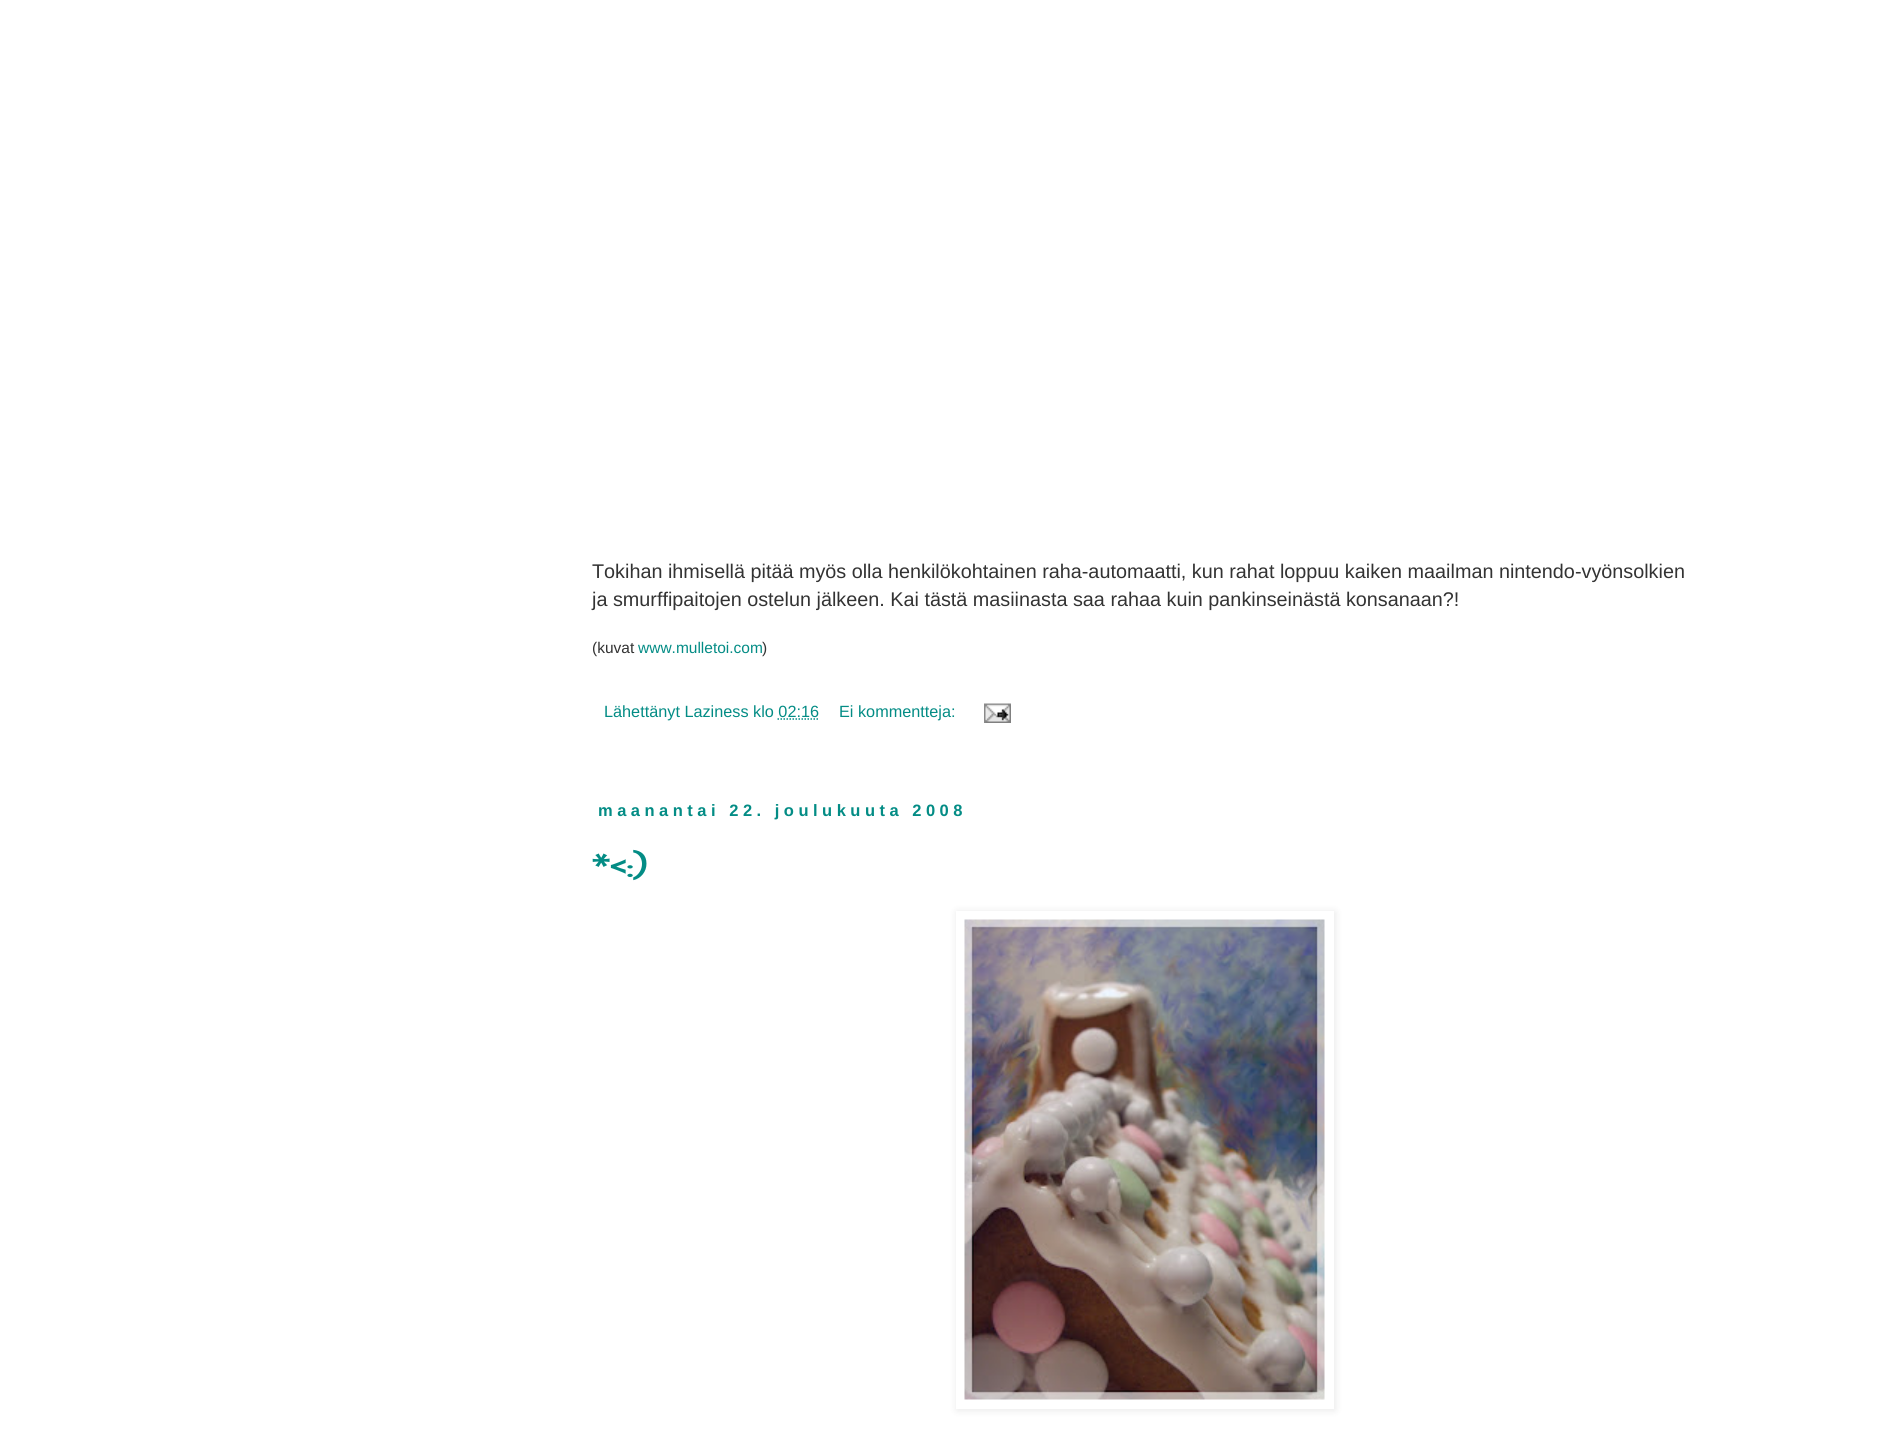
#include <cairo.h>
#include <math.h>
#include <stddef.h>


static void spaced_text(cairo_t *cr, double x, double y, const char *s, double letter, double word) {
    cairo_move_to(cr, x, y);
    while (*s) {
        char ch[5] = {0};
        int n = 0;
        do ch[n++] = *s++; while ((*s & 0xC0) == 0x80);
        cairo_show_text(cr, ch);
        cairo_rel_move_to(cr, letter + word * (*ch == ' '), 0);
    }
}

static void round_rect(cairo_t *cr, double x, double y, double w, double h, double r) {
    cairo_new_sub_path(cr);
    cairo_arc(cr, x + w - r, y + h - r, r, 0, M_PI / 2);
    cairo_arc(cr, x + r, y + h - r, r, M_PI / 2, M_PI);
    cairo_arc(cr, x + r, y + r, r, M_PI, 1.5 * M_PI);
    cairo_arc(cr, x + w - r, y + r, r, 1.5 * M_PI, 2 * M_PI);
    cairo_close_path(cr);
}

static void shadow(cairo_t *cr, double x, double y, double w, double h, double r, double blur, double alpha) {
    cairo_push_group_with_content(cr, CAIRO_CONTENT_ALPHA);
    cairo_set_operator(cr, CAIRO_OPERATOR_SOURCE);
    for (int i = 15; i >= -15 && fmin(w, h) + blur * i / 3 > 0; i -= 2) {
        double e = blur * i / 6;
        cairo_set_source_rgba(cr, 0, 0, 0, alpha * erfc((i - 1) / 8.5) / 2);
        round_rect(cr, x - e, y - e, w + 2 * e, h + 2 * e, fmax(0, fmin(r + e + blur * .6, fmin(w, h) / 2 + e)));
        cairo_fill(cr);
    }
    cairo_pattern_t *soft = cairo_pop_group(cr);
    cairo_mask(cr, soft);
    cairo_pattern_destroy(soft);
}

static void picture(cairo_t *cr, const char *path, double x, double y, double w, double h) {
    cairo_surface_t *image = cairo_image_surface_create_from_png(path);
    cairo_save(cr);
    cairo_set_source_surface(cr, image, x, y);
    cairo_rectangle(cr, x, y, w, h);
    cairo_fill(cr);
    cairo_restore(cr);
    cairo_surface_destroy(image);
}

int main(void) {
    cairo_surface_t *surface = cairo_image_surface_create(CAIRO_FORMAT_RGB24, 1897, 1439);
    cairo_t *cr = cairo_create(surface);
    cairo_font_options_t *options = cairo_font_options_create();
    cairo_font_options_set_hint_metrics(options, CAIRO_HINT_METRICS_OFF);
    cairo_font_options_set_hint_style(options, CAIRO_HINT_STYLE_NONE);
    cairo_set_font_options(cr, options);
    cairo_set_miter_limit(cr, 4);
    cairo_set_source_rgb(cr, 1, 1, 1);
    cairo_paint(cr);
    cairo_select_font_face(cr, "Liberation Sans", CAIRO_FONT_SLANT_NORMAL, CAIRO_FONT_WEIGHT_NORMAL);
    cairo_set_font_size(cr, 19.8);
    cairo_set_source_rgb(cr, 0.2, 0.2, 0.2);
    cairo_move_to(cr, 592, 578);
    cairo_show_text(cr, "Tokihan ihmisellä pitää myös olla henkilökohtainen raha-automaatti, kun rahat loppuu kaiken maailman nintendo-vyönsolkien");
    cairo_move_to(cr, 592, 606);
    cairo_show_text(cr, "ja smurffipaitojen ostelun jälkeen. Kai tästä masiinasta saa rahaa kuin pankinseinästä konsanaan?!");
    cairo_set_font_size(cr, 15.5);
    cairo_move_to(cr, 592, 653);
    cairo_show_text(cr, "(kuvat");
    cairo_set_source_rgb(cr, 0.012, 0.549, 0.522);
    cairo_move_to(cr, 638, 653);
    cairo_show_text(cr, "www.mulletoi.com");
    cairo_set_source_rgb(cr, 0.2, 0.2, 0.2);
    cairo_move_to(cr, 762, 653);
    cairo_show_text(cr, ")");
    cairo_set_font_size(cr, 16.25);
    cairo_set_source_rgb(cr, 0.012, 0.549, 0.522);
    cairo_move_to(cr, 604, 717);
    cairo_show_text(cr, "Lähettänyt Laziness klo 02:16");
    cairo_move_to(cr, 839, 717);
    cairo_show_text(cr, "Ei kommentteja:");
    picture(cr, "img1.png", 984, 703, 27, 20);
    cairo_new_path(cr);
    cairo_move_to(cr, 777.5, 719);
    cairo_line_to(cr, 818, 719);
    cairo_set_line_width(cr, 1.5);
    cairo_set_dash(cr, (double[]){1.5, 1.5}, 2, 0);
    cairo_stroke(cr);
    cairo_select_font_face(cr, "Liberation Sans", CAIRO_FONT_SLANT_NORMAL, CAIRO_FONT_WEIGHT_BOLD);
    cairo_set_font_size(cr, 16.5);
    spaced_text(cr, 598, 816, "maanantai 22. joulukuuta 2008", 4.5, 0);
    cairo_select_font_face(cr, "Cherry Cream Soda", CAIRO_FONT_SLANT_NORMAL, CAIRO_FONT_WEIGHT_NORMAL);
    cairo_set_font_size(cr, 33);
    cairo_move_to(cr, 592, 877);
    cairo_show_text(cr, "*<:)");
    cairo_set_source_rgb(cr, 0, 0, 0);
    shadow(cr, 957, 912, 378, 498, 0, 4, 0.1);
    cairo_set_source_rgb(cr, 1, 1, 1);
    cairo_rectangle(cr, 956, 911, 378, 498);
    cairo_fill(cr);
    picture(cr, "img2.png", 964, 919, 361, 481);
    cairo_surface_write_to_png(surface, "page.png");
    cairo_font_options_destroy(options);
    cairo_destroy(cr);
    cairo_surface_destroy(surface);
    return 0;
}
